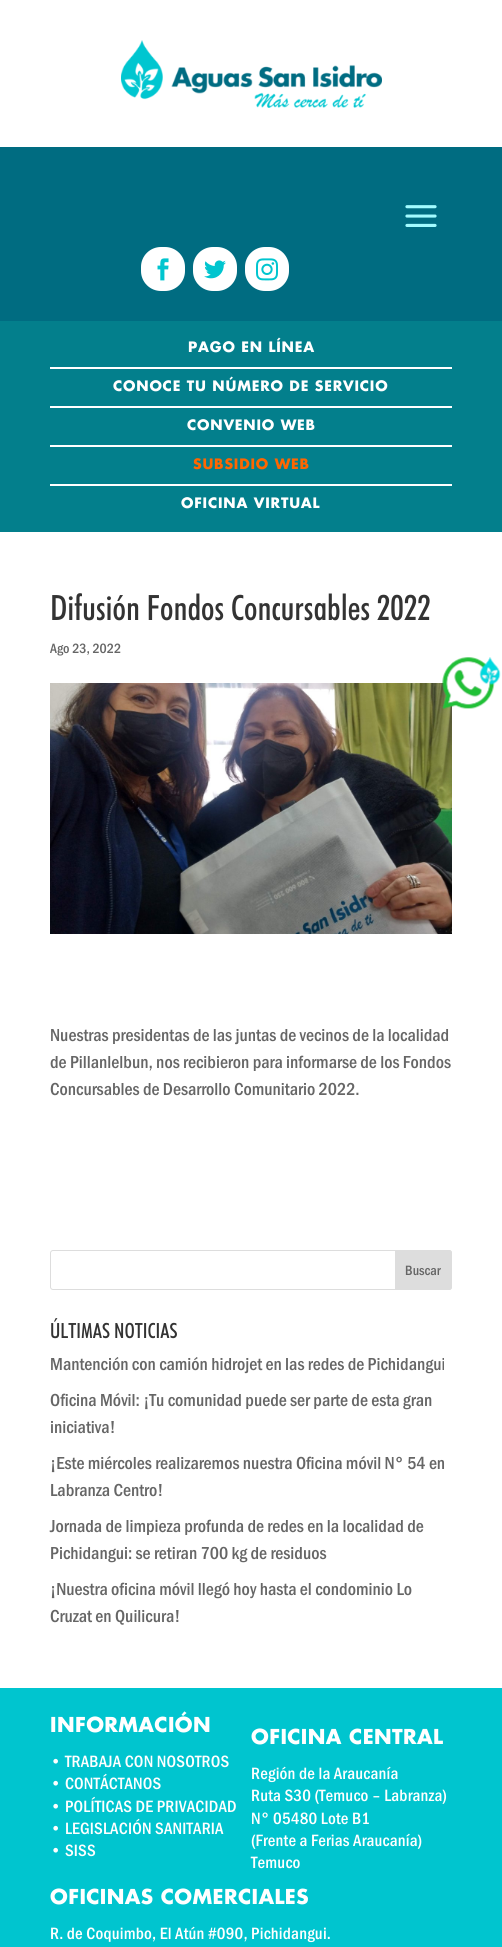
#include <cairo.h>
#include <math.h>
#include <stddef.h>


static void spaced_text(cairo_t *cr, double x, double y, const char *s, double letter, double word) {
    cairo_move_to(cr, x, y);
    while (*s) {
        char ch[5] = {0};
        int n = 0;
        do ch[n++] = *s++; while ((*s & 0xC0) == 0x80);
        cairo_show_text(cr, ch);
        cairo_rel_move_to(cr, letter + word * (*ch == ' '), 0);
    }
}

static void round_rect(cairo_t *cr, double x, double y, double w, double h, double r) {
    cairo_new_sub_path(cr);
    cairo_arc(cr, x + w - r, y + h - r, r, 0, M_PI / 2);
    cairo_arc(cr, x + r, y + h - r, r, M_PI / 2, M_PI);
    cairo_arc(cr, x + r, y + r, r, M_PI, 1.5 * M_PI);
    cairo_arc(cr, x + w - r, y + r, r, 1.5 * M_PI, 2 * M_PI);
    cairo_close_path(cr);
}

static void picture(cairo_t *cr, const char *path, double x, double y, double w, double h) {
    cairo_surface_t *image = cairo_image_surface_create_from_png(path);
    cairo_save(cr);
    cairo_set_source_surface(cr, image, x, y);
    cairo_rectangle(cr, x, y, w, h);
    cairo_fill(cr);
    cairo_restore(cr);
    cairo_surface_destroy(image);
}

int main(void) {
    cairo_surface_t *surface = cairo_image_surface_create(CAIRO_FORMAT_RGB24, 502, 1947);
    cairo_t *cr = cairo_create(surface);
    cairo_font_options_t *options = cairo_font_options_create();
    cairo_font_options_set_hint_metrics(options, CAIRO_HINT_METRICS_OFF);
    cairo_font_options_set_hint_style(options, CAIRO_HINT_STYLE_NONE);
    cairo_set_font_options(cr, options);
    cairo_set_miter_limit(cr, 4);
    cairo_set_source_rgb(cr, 1, 1, 1);
    cairo_paint(cr);
    picture(cr, "img1.png", 121, 40, 261, 68);
    cairo_set_source_rgb(cr, 0, 0.424, 0.506);
    cairo_rectangle(cr, 0, 147, 502, 174);
    cairo_fill(cr);
    picture(cr, "img2.png", 405, 205, 32, 22);
    cairo_set_source_rgb(cr, 1, 1, 1);
    round_rect(cr, 141, 247, 44, 44, 20);
    cairo_fill(cr);
    picture(cr, "img3.png", 157, 258, 12, 23);
    round_rect(cr, 193, 247, 44, 44, 20);
    cairo_fill(cr);
    picture(cr, "img4.png", 204, 260, 22, 19);
    round_rect(cr, 245, 247, 44, 44, 20);
    cairo_fill(cr);
    picture(cr, "img5.png", 256, 258, 22, 23);
    picture(cr, "img7.png", 50, 683, 402, 251);
    picture(cr, "img6.png", 442, 657, 59, 52);
    cairo_set_source_rgb(cr, 0.012, 0.498, 0.549);
    cairo_rectangle(cr, 0, 321, 502, 211);
    cairo_fill(cr);
    cairo_select_font_face(cr, "Futura", CAIRO_FONT_SLANT_NORMAL, CAIRO_FONT_WEIGHT_BOLD);
    cairo_set_font_size(cr, 14);
    cairo_set_source_rgb(cr, 1, 1, 1);
    spaced_text(cr, 188, 352, "PAGO EN LÍNEA", 0.8, 0);
    cairo_rectangle(cr, 50, 367, 402, 2);
    cairo_fill(cr);
    spaced_text(cr, 113, 391, "CONOCE TU NÚMERO DE SERVICIO", 0.8, 0);
    cairo_rectangle(cr, 50, 406, 402, 2);
    cairo_fill(cr);
    spaced_text(cr, 187, 430, "CONVENIO WEB", 0.8, 0);
    cairo_rectangle(cr, 50, 445, 402, 2);
    cairo_fill(cr);
    cairo_set_source_rgb(cr, 1, 0.4, 0);
    spaced_text(cr, 193, 469, "SUBSIDIO WEB", 0.8, 0);
    cairo_set_source_rgb(cr, 1, 1, 1);
    cairo_rectangle(cr, 50, 484, 402, 2);
    cairo_fill(cr);
    spaced_text(cr, 181, 508, "OFICINA VIRTUAL", 0.8, 0);
    cairo_select_font_face(cr, "Futura Medium", CAIRO_FONT_SLANT_NORMAL, CAIRO_FONT_WEIGHT_NORMAL);
    cairo_set_font_size(cr, 35);
    cairo_set_source_rgb(cr, 0.2, 0.2, 0.2);
    cairo_move_to(cr, 50, 620);
    cairo_show_text(cr, "Difusión Fondos Concursables 2022");
    cairo_select_font_face(cr, "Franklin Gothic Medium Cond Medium", CAIRO_FONT_SLANT_NORMAL, CAIRO_FONT_WEIGHT_NORMAL);
    cairo_set_font_size(cr, 14);
    cairo_set_source_rgb(cr, 0.4, 0.4, 0.4);
    cairo_move_to(cr, 50, 653);
    cairo_show_text(cr, "Ago 23, 2022");
    cairo_set_font_size(cr, 18);
    cairo_move_to(cr, 50, 1041);
    cairo_show_text(cr, "Nuestras presidentas de las juntas de vecinos de la localidad");
    cairo_move_to(cr, 50, 1068);
    cairo_show_text(cr, "de Pillanlelbun, nos recibieron para informarse de los Fondos");
    cairo_move_to(cr, 50, 1095);
    cairo_show_text(cr, "Concursables de Desarrollo Comunitario 2022.");
    round_rect(cr, 50.5, 1250.5, 401, 39, 2.5);
    cairo_set_source_rgb(cr, 0.867, 0.867, 0.867);
    cairo_set_line_width(cr, 1);
    cairo_stroke(cr);
    cairo_new_path(cr);
    cairo_move_to(cr, 395.5, 1250.5);
    cairo_line_to(cr, 449, 1250.5);
    cairo_curve_to(cr, 450.5, 1250.5, 451.5, 1251.5, 451.5, 1253);
    cairo_line_to(cr, 451.5, 1287);
    cairo_curve_to(cr, 451.5, 1288.5, 450.5, 1289.5, 449, 1289.5);
    cairo_line_to(cr, 395.5, 1289.5);
    cairo_close_path(cr);
    cairo_fill_preserve(cr);
    cairo_stroke(cr);
    cairo_set_font_size(cr, 14);
    cairo_set_source_rgb(cr, 0.4, 0.4, 0.4);
    cairo_move_to(cr, 405, 1275);
    cairo_show_text(cr, "Buscar");
    cairo_select_font_face(cr, "Futura Medium", CAIRO_FONT_SLANT_NORMAL, CAIRO_FONT_WEIGHT_NORMAL);
    cairo_set_font_size(cr, 21);
    cairo_set_source_rgb(cr, 0.2, 0.2, 0.2);
    cairo_move_to(cr, 50, 1338);
    cairo_show_text(cr, "ÚLTIMAS NOTICIAS");
    cairo_select_font_face(cr, "Franklin Gothic Medium Cond Medium", CAIRO_FONT_SLANT_NORMAL, CAIRO_FONT_WEIGHT_NORMAL);
    cairo_set_font_size(cr, 18);
    cairo_set_source_rgb(cr, 0.4, 0.4, 0.4);
    cairo_move_to(cr, 50, 1370);
    cairo_show_text(cr, "Mantención con camión hidrojet en las redes de Pichidangui");
    cairo_move_to(cr, 50, 1406);
    cairo_show_text(cr, "Oficina Móvil: ¡Tu comunidad puede ser parte de esta gran");
    cairo_move_to(cr, 50, 1433);
    cairo_show_text(cr, "iniciativa!");
    cairo_move_to(cr, 50, 1469);
    cairo_show_text(cr, "¡Este miércoles realizaremos nuestra Oficina móvil N° 54 en");
    cairo_move_to(cr, 50, 1496);
    cairo_show_text(cr, "Labranza Centro!");
    cairo_move_to(cr, 50, 1532);
    cairo_show_text(cr, "Jornada de limpieza profunda de redes en la localidad de");
    cairo_move_to(cr, 50, 1559);
    cairo_show_text(cr, "Pichidangui: se retiran 700 kg de residuos");
    cairo_move_to(cr, 50, 1595);
    cairo_show_text(cr, "¡Nuestra oficina móvil llegó hoy hasta el condominio Lo");
    cairo_move_to(cr, 50, 1622);
    cairo_show_text(cr, "Cruzat en Quilicura!");
    cairo_set_source_rgb(cr, 0, 0.773, 0.812);
    cairo_rectangle(cr, 0, 1688, 502, 259);
    cairo_fill(cr);
    cairo_select_font_face(cr, "Futura", CAIRO_FONT_SLANT_NORMAL, CAIRO_FONT_WEIGHT_BOLD);
    cairo_set_font_size(cr, 20);
    cairo_set_source_rgb(cr, 1, 1, 1);
    spaced_text(cr, 50, 1732, "INFORMACIÓN", 0.4, 0);
    cairo_select_font_face(cr, "Franklin Gothic Medium Cond Medium", CAIRO_FONT_SLANT_NORMAL, CAIRO_FONT_WEIGHT_NORMAL);
    cairo_set_font_size(cr, 17);
    spaced_text(cr, 50, 1767, "• TRABAJA CON NOSOTROS", 0.2, 0);
    spaced_text(cr, 50, 1789, "• CONTÁCTANOS", 0.2, 0);
    spaced_text(cr, 50, 1812, "• POLÍTICAS DE PRIVACIDAD", 0.2, 0);
    spaced_text(cr, 50, 1834, "• LEGISLACIÓN SANITARIA", 0.2, 0);
    spaced_text(cr, 50, 1856, "• SISS", 0.2, 0);
    cairo_select_font_face(cr, "Futura", CAIRO_FONT_SLANT_NORMAL, CAIRO_FONT_WEIGHT_BOLD);
    cairo_set_font_size(cr, 20);
    spaced_text(cr, 251, 1744, "OFICINA CENTRAL", 0.4, 0);
    cairo_select_font_face(cr, "Franklin Gothic Medium Cond Medium", CAIRO_FONT_SLANT_NORMAL, CAIRO_FONT_WEIGHT_NORMAL);
    cairo_set_font_size(cr, 17);
    spaced_text(cr, 251, 1779, "Región de la Araucanía", 0.2, 0);
    spaced_text(cr, 251, 1801, "Ruta S30 (Temuco – Labranza)", 0.2, 0);
    spaced_text(cr, 251, 1824, "N° 05480 Lote B1", 0.2, 0);
    spaced_text(cr, 251, 1846, "(Frente a Ferias Araucanía)", 0.2, 0);
    spaced_text(cr, 251, 1868, "Temuco", 0.2, 0);
    cairo_select_font_face(cr, "Futura", CAIRO_FONT_SLANT_NORMAL, CAIRO_FONT_WEIGHT_BOLD);
    cairo_set_font_size(cr, 20);
    spaced_text(cr, 50, 1904, "OFICINAS COMERCIALES", 0.4, 0);
    cairo_select_font_face(cr, "Franklin Gothic Medium Cond Medium", CAIRO_FONT_SLANT_NORMAL, CAIRO_FONT_WEIGHT_NORMAL);
    cairo_set_font_size(cr, 17);
    spaced_text(cr, 50, 1939, "R. de Coquimbo, El Atún #090, Pichidangui.", 0.2, 0);
    cairo_surface_write_to_png(surface, "page.png");
    cairo_font_options_destroy(options);
    cairo_destroy(cr);
    cairo_surface_destroy(surface);
    return 0;
}
